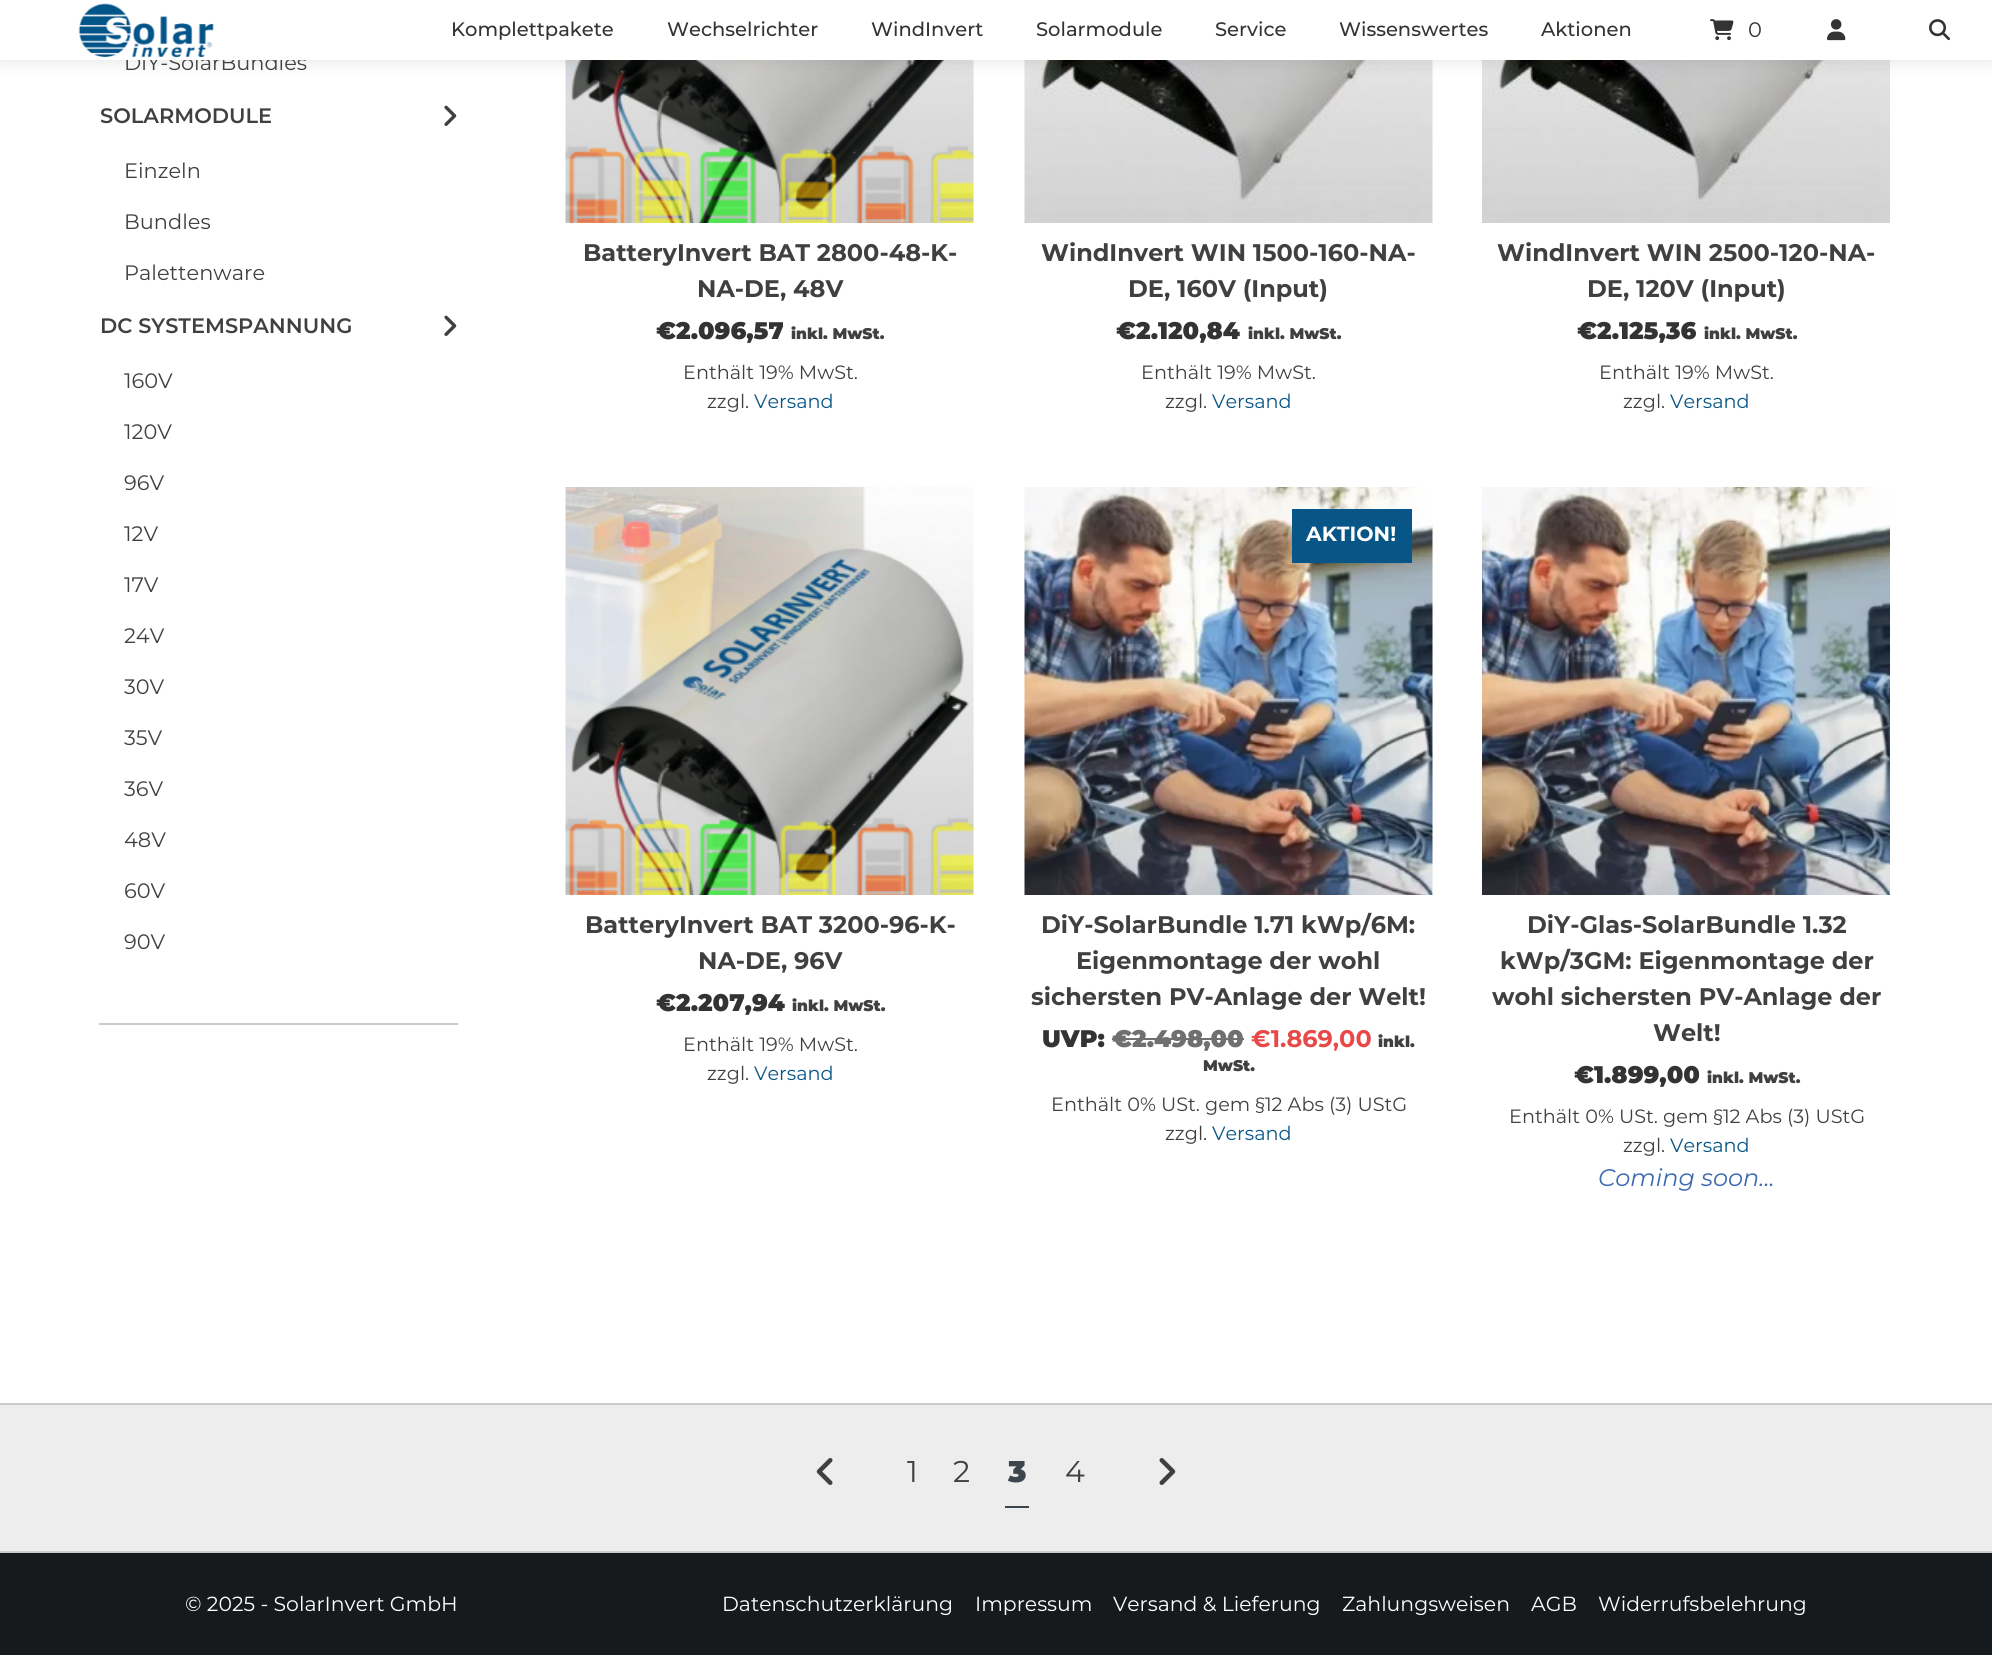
#include <cairo.h>
#include <math.h>
#include <stddef.h>


static void round_rect(cairo_t *cr, double x, double y, double w, double h, double r) {
    cairo_new_sub_path(cr);
    cairo_arc(cr, x + w - r, y + h - r, r, 0, M_PI / 2);
    cairo_arc(cr, x + r, y + h - r, r, M_PI / 2, M_PI);
    cairo_arc(cr, x + r, y + r, r, M_PI, 1.5 * M_PI);
    cairo_arc(cr, x + w - r, y + r, r, 1.5 * M_PI, 2 * M_PI);
    cairo_close_path(cr);
}

static void shadow(cairo_t *cr, double x, double y, double w, double h, double r, double blur, double alpha) {
    cairo_push_group_with_content(cr, CAIRO_CONTENT_ALPHA);
    cairo_set_operator(cr, CAIRO_OPERATOR_SOURCE);
    for (int i = 15; i >= -15 && fmin(w, h) + blur * i / 3 > 0; i -= 2) {
        double e = blur * i / 6;
        cairo_set_source_rgba(cr, 0, 0, 0, alpha * erfc((i - 1) / 8.5) / 2);
        round_rect(cr, x - e, y - e, w + 2 * e, h + 2 * e, fmax(0, fmin(r + e + blur * .6, fmin(w, h) / 2 + e)));
        cairo_fill(cr);
    }
    cairo_pattern_t *soft = cairo_pop_group(cr);
    cairo_mask(cr, soft);
    cairo_pattern_destroy(soft);
}

static void picture(cairo_t *cr, const char *path, double x, double y, double w, double h) {
    cairo_surface_t *image = cairo_image_surface_create_from_png(path);
    cairo_save(cr);
    cairo_set_source_surface(cr, image, x, y);
    cairo_rectangle(cr, x, y, w, h);
    cairo_fill(cr);
    cairo_restore(cr);
    cairo_surface_destroy(image);
}

int main(void) {
    cairo_surface_t *surface = cairo_image_surface_create(CAIRO_FORMAT_RGB24, 1992, 1655);
    cairo_t *cr = cairo_create(surface);
    cairo_font_options_t *options = cairo_font_options_create();
    cairo_font_options_set_hint_metrics(options, CAIRO_HINT_METRICS_OFF);
    cairo_font_options_set_hint_style(options, CAIRO_HINT_STYLE_NONE);
    cairo_set_font_options(cr, options);
    cairo_set_miter_limit(cr, 4);
    cairo_set_source_rgb(cr, 1, 1, 1);
    cairo_paint(cr);
    picture(cr, "img6.png", 565, 60, 409, 163);
    picture(cr, "img7.png", 1024, 60, 409, 163);
    picture(cr, "img8.png", 1482, 60, 408, 163);
    cairo_set_source_rgb(cr, 0, 0, 0);
    shadow(cr, 0, 2, 1992, 60, 0, 7.5, 0.1);
    cairo_select_font_face(cr, "Montserrat", CAIRO_FONT_SLANT_NORMAL, CAIRO_FONT_WEIGHT_NORMAL);
    cairo_set_font_size(cr, 20.9);
    cairo_set_source_rgb(cr, 0.251, 0.251, 0.251);
    cairo_move_to(cr, 124, 70);
    cairo_show_text(cr, "DiY-SolarBundles");
    cairo_set_source_rgb(cr, 1, 1, 1);
    cairo_rectangle(cr, 0, 0, 1992, 60);
    cairo_fill(cr);
    picture(cr, "img1.png", 78, 3, 136, 55);
    cairo_select_font_face(cr, "Montserrat Medium", CAIRO_FONT_SLANT_NORMAL, CAIRO_FONT_WEIGHT_NORMAL);
    cairo_set_font_size(cr, 19.5);
    cairo_set_source_rgb(cr, 0.2, 0.2, 0.2);
    cairo_move_to(cr, 451, 36);
    cairo_show_text(cr, "Komplettpakete");
    cairo_move_to(cr, 667, 36);
    cairo_show_text(cr, "Wechselrichter");
    cairo_move_to(cr, 871, 36);
    cairo_show_text(cr, "WindInvert");
    cairo_move_to(cr, 1036, 36);
    cairo_show_text(cr, "Solarmodule");
    cairo_move_to(cr, 1215, 36);
    cairo_show_text(cr, "Service");
    cairo_move_to(cr, 1339, 36);
    cairo_show_text(cr, "Wissenswertes");
    cairo_move_to(cr, 1541, 36);
    cairo_show_text(cr, "Aktionen");
    picture(cr, "img2.png", 1710, 19, 24, 22);
    cairo_select_font_face(cr, "Montserrat", CAIRO_FONT_SLANT_NORMAL, CAIRO_FONT_WEIGHT_NORMAL);
    cairo_set_font_size(cr, 21);
    cairo_move_to(cr, 1748, 37);
    cairo_show_text(cr, "0");
    picture(cr, "img3.png", 1827, 19, 19, 22);
    picture(cr, "img4.png", 1929, 19, 21, 22);
    cairo_set_source_rgb(cr, 0.796, 0.796, 0.796);
    cairo_rectangle(cr, 99, 1023, 359, 2);
    cairo_fill(cr);
    cairo_select_font_face(cr, "Montserrat SemiBold", CAIRO_FONT_SLANT_NORMAL, CAIRO_FONT_WEIGHT_NORMAL);
    cairo_set_font_size(cr, 20.9);
    cairo_set_source_rgb(cr, 0.251, 0.251, 0.251);
    cairo_move_to(cr, 100, 123);
    cairo_show_text(cr, "SOLARMODULE");
    picture(cr, "img5.png", 444, 105, 13, 21);
    cairo_select_font_face(cr, "Montserrat", CAIRO_FONT_SLANT_NORMAL, CAIRO_FONT_WEIGHT_NORMAL);
    cairo_move_to(cr, 124, 178);
    cairo_show_text(cr, "Einzeln");
    cairo_move_to(cr, 124, 229);
    cairo_show_text(cr, "Bundles");
    cairo_move_to(cr, 124, 280);
    cairo_show_text(cr, "Palettenware");
    cairo_select_font_face(cr, "Montserrat SemiBold", CAIRO_FONT_SLANT_NORMAL, CAIRO_FONT_WEIGHT_NORMAL);
    cairo_move_to(cr, 100, 333);
    cairo_show_text(cr, "DC SYSTEMSPANNUNG");
    picture(cr, "img5.png", 444, 315, 13, 21);
    cairo_select_font_face(cr, "Montserrat", CAIRO_FONT_SLANT_NORMAL, CAIRO_FONT_WEIGHT_NORMAL);
    cairo_move_to(cr, 124, 388);
    cairo_show_text(cr, "160V");
    cairo_move_to(cr, 124, 439);
    cairo_show_text(cr, "120V");
    cairo_move_to(cr, 124, 490);
    cairo_show_text(cr, "96V");
    cairo_move_to(cr, 124, 541);
    cairo_show_text(cr, "12V");
    cairo_move_to(cr, 124, 592);
    cairo_show_text(cr, "17V");
    cairo_move_to(cr, 124, 643);
    cairo_show_text(cr, "24V");
    cairo_move_to(cr, 124, 694);
    cairo_show_text(cr, "30V");
    cairo_move_to(cr, 124, 745);
    cairo_show_text(cr, "35V");
    cairo_move_to(cr, 124, 796);
    cairo_show_text(cr, "36V");
    cairo_move_to(cr, 124, 847);
    cairo_show_text(cr, "48V");
    cairo_move_to(cr, 124, 898);
    cairo_show_text(cr, "60V");
    cairo_move_to(cr, 124, 949);
    cairo_show_text(cr, "90V");
    cairo_select_font_face(cr, "Montserrat", CAIRO_FONT_SLANT_NORMAL, CAIRO_FONT_WEIGHT_BOLD);
    cairo_set_font_size(cr, 24);
    cairo_move_to(cr, 583, 261);
    cairo_show_text(cr, "BatteryInvert BAT 2800-48-K-");
    cairo_move_to(cr, 697, 297);
    cairo_show_text(cr, "NA-DE, 48V");
    cairo_select_font_face(cr, "Montserrat Black", CAIRO_FONT_SLANT_NORMAL, CAIRO_FONT_WEIGHT_NORMAL);
    cairo_set_source_rgb(cr, 0.2, 0.2, 0.2);
    cairo_move_to(cr, 656, 339);
    cairo_show_text(cr, "€2.096,57");
    cairo_set_font_size(cr, 15.5);
    cairo_set_source_rgb(cr, 0.251, 0.251, 0.251);
    cairo_move_to(cr, 791, 339);
    cairo_show_text(cr, "inkl. MwSt.");
    cairo_select_font_face(cr, "Montserrat", CAIRO_FONT_SLANT_NORMAL, CAIRO_FONT_WEIGHT_NORMAL);
    cairo_set_font_size(cr, 19.25);
    cairo_move_to(cr, 683, 379);
    cairo_show_text(cr, "Enthält 19% MwSt.");
    cairo_move_to(cr, 707, 408);
    cairo_show_text(cr, "zzgl.");
    cairo_set_source_rgb(cr, 0.035, 0.337, 0.529);
    cairo_move_to(cr, 754, 408);
    cairo_show_text(cr, "Versand");
    cairo_select_font_face(cr, "Montserrat", CAIRO_FONT_SLANT_NORMAL, CAIRO_FONT_WEIGHT_BOLD);
    cairo_set_font_size(cr, 24);
    cairo_set_source_rgb(cr, 0.251, 0.251, 0.251);
    cairo_move_to(cr, 1041, 261);
    cairo_show_text(cr, "WindInvert WIN 1500-160-NA-");
    cairo_move_to(cr, 1128, 297);
    cairo_show_text(cr, "DE, 160V (Input)");
    cairo_select_font_face(cr, "Montserrat Black", CAIRO_FONT_SLANT_NORMAL, CAIRO_FONT_WEIGHT_NORMAL);
    cairo_set_source_rgb(cr, 0.2, 0.2, 0.2);
    cairo_move_to(cr, 1116, 339);
    cairo_show_text(cr, "€2.120,84");
    cairo_set_font_size(cr, 15.5);
    cairo_set_source_rgb(cr, 0.251, 0.251, 0.251);
    cairo_move_to(cr, 1248, 339);
    cairo_show_text(cr, "inkl. MwSt.");
    cairo_select_font_face(cr, "Montserrat", CAIRO_FONT_SLANT_NORMAL, CAIRO_FONT_WEIGHT_NORMAL);
    cairo_set_font_size(cr, 19.25);
    cairo_move_to(cr, 1141, 379);
    cairo_show_text(cr, "Enthält 19% MwSt.");
    cairo_move_to(cr, 1165, 408);
    cairo_show_text(cr, "zzgl.");
    cairo_set_source_rgb(cr, 0.035, 0.337, 0.529);
    cairo_move_to(cr, 1212, 408);
    cairo_show_text(cr, "Versand");
    cairo_select_font_face(cr, "Montserrat", CAIRO_FONT_SLANT_NORMAL, CAIRO_FONT_WEIGHT_BOLD);
    cairo_set_font_size(cr, 24);
    cairo_set_source_rgb(cr, 0.251, 0.251, 0.251);
    cairo_move_to(cr, 1497, 261);
    cairo_show_text(cr, "WindInvert WIN 2500-120-NA-");
    cairo_move_to(cr, 1587, 297);
    cairo_show_text(cr, "DE, 120V (Input)");
    cairo_select_font_face(cr, "Montserrat Black", CAIRO_FONT_SLANT_NORMAL, CAIRO_FONT_WEIGHT_NORMAL);
    cairo_set_source_rgb(cr, 0.2, 0.2, 0.2);
    cairo_move_to(cr, 1577, 339);
    cairo_show_text(cr, "€2.125,36");
    cairo_set_font_size(cr, 15.5);
    cairo_set_source_rgb(cr, 0.251, 0.251, 0.251);
    cairo_move_to(cr, 1704, 339);
    cairo_show_text(cr, "inkl. MwSt.");
    cairo_select_font_face(cr, "Montserrat", CAIRO_FONT_SLANT_NORMAL, CAIRO_FONT_WEIGHT_NORMAL);
    cairo_set_font_size(cr, 19.25);
    cairo_move_to(cr, 1599, 379);
    cairo_show_text(cr, "Enthält 19% MwSt.");
    cairo_move_to(cr, 1623, 408);
    cairo_show_text(cr, "zzgl.");
    cairo_set_source_rgb(cr, 0.035, 0.337, 0.529);
    cairo_move_to(cr, 1670, 408);
    cairo_show_text(cr, "Versand");
    picture(cr, "img9.png", 565, 487, 409, 408);
    cairo_select_font_face(cr, "Montserrat", CAIRO_FONT_SLANT_NORMAL, CAIRO_FONT_WEIGHT_BOLD);
    cairo_set_font_size(cr, 24);
    cairo_set_source_rgb(cr, 0.251, 0.251, 0.251);
    cairo_move_to(cr, 585, 933);
    cairo_show_text(cr, "BatteryInvert BAT 3200-96-K-");
    cairo_move_to(cr, 698, 969);
    cairo_show_text(cr, "NA-DE, 96V");
    cairo_select_font_face(cr, "Montserrat Black", CAIRO_FONT_SLANT_NORMAL, CAIRO_FONT_WEIGHT_NORMAL);
    cairo_set_source_rgb(cr, 0.2, 0.2, 0.2);
    cairo_move_to(cr, 656, 1011);
    cairo_show_text(cr, "€2.207,94");
    cairo_set_font_size(cr, 15.5);
    cairo_set_source_rgb(cr, 0.251, 0.251, 0.251);
    cairo_move_to(cr, 792, 1011);
    cairo_show_text(cr, "inkl. MwSt.");
    cairo_select_font_face(cr, "Montserrat", CAIRO_FONT_SLANT_NORMAL, CAIRO_FONT_WEIGHT_NORMAL);
    cairo_set_font_size(cr, 19.25);
    cairo_move_to(cr, 683, 1051);
    cairo_show_text(cr, "Enthält 19% MwSt.");
    cairo_move_to(cr, 707, 1080);
    cairo_show_text(cr, "zzgl.");
    cairo_set_source_rgb(cr, 0.035, 0.337, 0.529);
    cairo_move_to(cr, 754, 1080);
    cairo_show_text(cr, "Versand");
    picture(cr, "img10.png", 1024, 487, 409, 408);
    cairo_rectangle(cr, 1292, 509, 120, 54);
    cairo_fill(cr);
    cairo_select_font_face(cr, "Montserrat", CAIRO_FONT_SLANT_NORMAL, CAIRO_FONT_WEIGHT_BOLD);
    cairo_set_font_size(cr, 20.5);
    cairo_set_source_rgb(cr, 1, 1, 1);
    cairo_move_to(cr, 1306, 541);
    cairo_show_text(cr, "AKTION!");
    cairo_set_font_size(cr, 24);
    cairo_set_source_rgb(cr, 0.251, 0.251, 0.251);
    cairo_move_to(cr, 1041, 933);
    cairo_show_text(cr, "DiY-SolarBundle 1.71 kWp/6M:");
    cairo_move_to(cr, 1076, 969);
    cairo_show_text(cr, "Eigenmontage der wohl");
    cairo_move_to(cr, 1031, 1005);
    cairo_show_text(cr, "sichersten PV-Anlage der Welt!");
    cairo_select_font_face(cr, "Montserrat Black", CAIRO_FONT_SLANT_NORMAL, CAIRO_FONT_WEIGHT_NORMAL);
    cairo_set_source_rgb(cr, 0.2, 0.2, 0.2);
    cairo_move_to(cr, 1042, 1047);
    cairo_show_text(cr, "UVP:");
    cairo_set_source_rgb(cr, 0.439, 0.439, 0.439);
    cairo_move_to(cr, 1112, 1047);
    cairo_show_text(cr, "€2.498,00");
    cairo_rectangle(cr, 1112, 1038, 132, 2);
    cairo_fill(cr);
    cairo_select_font_face(cr, "Montserrat", CAIRO_FONT_SLANT_NORMAL, CAIRO_FONT_WEIGHT_BOLD);
    cairo_set_source_rgb(cr, 0.91, 0.286, 0.282);
    cairo_move_to(cr, 1251, 1047);
    cairo_show_text(cr, "€1.869,00");
    cairo_select_font_face(cr, "Montserrat Black", CAIRO_FONT_SLANT_NORMAL, CAIRO_FONT_WEIGHT_NORMAL);
    cairo_set_font_size(cr, 15.5);
    cairo_set_source_rgb(cr, 0.251, 0.251, 0.251);
    cairo_move_to(cr, 1378, 1047);
    cairo_show_text(cr, "inkl.");
    cairo_move_to(cr, 1203, 1071);
    cairo_show_text(cr, "MwSt.");
    cairo_select_font_face(cr, "Montserrat", CAIRO_FONT_SLANT_NORMAL, CAIRO_FONT_WEIGHT_NORMAL);
    cairo_set_font_size(cr, 19.25);
    cairo_move_to(cr, 1051, 1111);
    cairo_show_text(cr, "Enthält 0% USt. gem §12 Abs (3) UStG");
    cairo_move_to(cr, 1165, 1140);
    cairo_show_text(cr, "zzgl.");
    cairo_set_source_rgb(cr, 0.035, 0.337, 0.529);
    cairo_move_to(cr, 1212, 1140);
    cairo_show_text(cr, "Versand");
    picture(cr, "img11.png", 1482, 487, 408, 408);
    cairo_select_font_face(cr, "Montserrat", CAIRO_FONT_SLANT_NORMAL, CAIRO_FONT_WEIGHT_BOLD);
    cairo_set_font_size(cr, 24);
    cairo_set_source_rgb(cr, 0.251, 0.251, 0.251);
    cairo_move_to(cr, 1527, 933);
    cairo_show_text(cr, "DiY-Glas-SolarBundle 1.32");
    cairo_move_to(cr, 1500, 969);
    cairo_show_text(cr, "kWp/3GM: Eigenmontage der");
    cairo_move_to(cr, 1492, 1005);
    cairo_show_text(cr, "wohl sichersten PV-Anlage der");
    cairo_move_to(cr, 1653, 1041);
    cairo_show_text(cr, "Welt!");
    cairo_select_font_face(cr, "Montserrat Black", CAIRO_FONT_SLANT_NORMAL, CAIRO_FONT_WEIGHT_NORMAL);
    cairo_set_source_rgb(cr, 0.2, 0.2, 0.2);
    cairo_move_to(cr, 1574, 1083);
    cairo_show_text(cr, "€1.899,00");
    cairo_set_font_size(cr, 15.5);
    cairo_set_source_rgb(cr, 0.251, 0.251, 0.251);
    cairo_move_to(cr, 1707, 1083);
    cairo_show_text(cr, "inkl. MwSt.");
    cairo_select_font_face(cr, "Montserrat", CAIRO_FONT_SLANT_NORMAL, CAIRO_FONT_WEIGHT_NORMAL);
    cairo_set_font_size(cr, 19.25);
    cairo_move_to(cr, 1509, 1123);
    cairo_show_text(cr, "Enthält 0% USt. gem §12 Abs (3) UStG");
    cairo_move_to(cr, 1623, 1152);
    cairo_show_text(cr, "zzgl.");
    cairo_set_source_rgb(cr, 0.035, 0.337, 0.529);
    cairo_move_to(cr, 1670, 1152);
    cairo_show_text(cr, "Versand");
    cairo_select_font_face(cr, "Montserrat", CAIRO_FONT_SLANT_ITALIC, CAIRO_FONT_WEIGHT_NORMAL);
    cairo_set_font_size(cr, 24);
    cairo_set_source_rgb(cr, 0.243, 0.416, 0.694);
    cairo_move_to(cr, 1598, 1186);
    cairo_show_text(cr, "Coming soon...");
    cairo_set_source_rgb(cr, 0.929, 0.929, 0.929);
    cairo_rectangle(cr, 0, 1405, 1992, 146);
    cairo_fill(cr);
    cairo_set_source_rgb(cr, 0.796, 0.796, 0.796);
    cairo_rectangle(cr, 0, 1403, 1992, 2);
    cairo_fill(cr);
    cairo_rectangle(cr, 0, 1551, 1992, 2);
    cairo_fill(cr);
    picture(cr, "img12.png", 816, 1458, 17, 27);
    cairo_select_font_face(cr, "Montserrat", CAIRO_FONT_SLANT_NORMAL, CAIRO_FONT_WEIGHT_NORMAL);
    cairo_set_font_size(cr, 30);
    cairo_set_source_rgb(cr, 0.251, 0.251, 0.251);
    cairo_move_to(cr, 907, 1482);
    cairo_show_text(cr, "1");
    cairo_move_to(cr, 953, 1482);
    cairo_show_text(cr, "2");
    cairo_select_font_face(cr, "Montserrat Black", CAIRO_FONT_SLANT_NORMAL, CAIRO_FONT_WEIGHT_NORMAL);
    cairo_set_source_rgb(cr, 0.239, 0.275, 0.31);
    cairo_move_to(cr, 1008, 1482);
    cairo_show_text(cr, "3");
    cairo_set_source_rgb(cr, 0.239, 0.271, 0.31);
    cairo_rectangle(cr, 1005, 1506, 24, 2);
    cairo_fill(cr);
    cairo_select_font_face(cr, "Montserrat", CAIRO_FONT_SLANT_NORMAL, CAIRO_FONT_WEIGHT_NORMAL);
    cairo_set_source_rgb(cr, 0.251, 0.251, 0.251);
    cairo_move_to(cr, 1065, 1482);
    cairo_show_text(cr, "4");
    picture(cr, "img13.png", 1159, 1458, 17, 27);
    cairo_set_source_rgb(cr, 0.086, 0.102, 0.114);
    cairo_rectangle(cr, 0, 1553, 1992, 102);
    cairo_fill(cr);
    cairo_set_font_size(cr, 20.4);
    cairo_set_source_rgb(cr, 1, 1, 1);
    cairo_move_to(cr, 185, 1611);
    cairo_show_text(cr, "© 2025 - SolarInvert GmbH");
    cairo_move_to(cr, 722, 1611);
    cairo_show_text(cr, "Datenschutzerklärung");
    cairo_move_to(cr, 975, 1611);
    cairo_show_text(cr, "Impressum");
    cairo_move_to(cr, 1113, 1611);
    cairo_show_text(cr, "Versand & Lieferung");
    cairo_move_to(cr, 1342, 1611);
    cairo_show_text(cr, "Zahlungsweisen");
    cairo_move_to(cr, 1531, 1611);
    cairo_show_text(cr, "AGB");
    cairo_move_to(cr, 1598, 1611);
    cairo_show_text(cr, "Widerrufsbelehrung");
    cairo_surface_write_to_png(surface, "page.png");
    cairo_font_options_destroy(options);
    cairo_destroy(cr);
    cairo_surface_destroy(surface);
    return 0;
}
